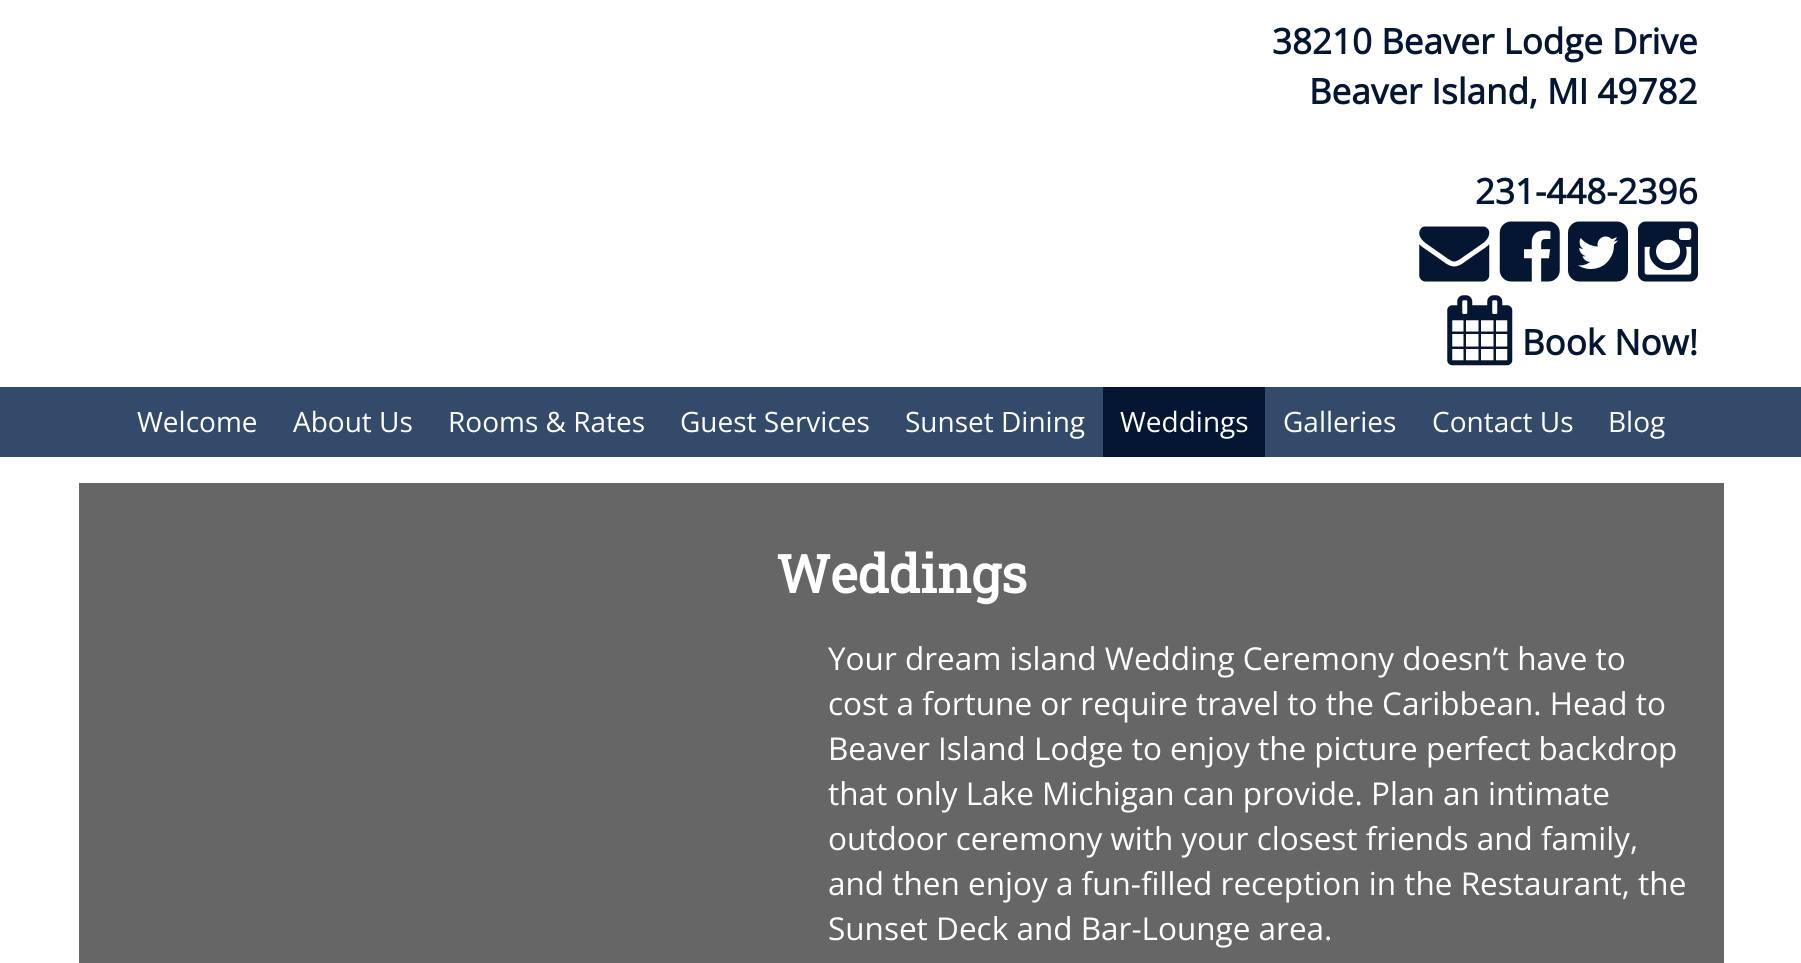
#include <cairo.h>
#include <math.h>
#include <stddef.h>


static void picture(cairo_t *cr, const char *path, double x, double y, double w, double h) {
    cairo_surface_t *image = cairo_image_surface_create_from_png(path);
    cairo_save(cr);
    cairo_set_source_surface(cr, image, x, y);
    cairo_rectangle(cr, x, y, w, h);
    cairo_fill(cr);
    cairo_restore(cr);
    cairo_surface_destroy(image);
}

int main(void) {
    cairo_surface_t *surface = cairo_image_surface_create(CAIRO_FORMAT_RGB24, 1801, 963);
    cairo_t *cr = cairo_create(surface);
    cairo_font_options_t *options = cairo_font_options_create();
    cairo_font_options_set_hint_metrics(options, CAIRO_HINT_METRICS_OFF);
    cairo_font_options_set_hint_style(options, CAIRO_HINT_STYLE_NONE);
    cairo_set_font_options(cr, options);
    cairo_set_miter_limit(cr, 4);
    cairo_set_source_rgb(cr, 1, 1, 1);
    cairo_paint(cr);
    cairo_select_font_face(cr, "Open Sans", CAIRO_FONT_SLANT_NORMAL, CAIRO_FONT_WEIGHT_BOLD);
    cairo_set_font_size(cr, 35);
    cairo_set_source_rgb(cr, 0.02, 0.086, 0.196);
    cairo_move_to(cr, 1272, 54);
    cairo_show_text(cr, "38210 Beaver Lodge Drive");
    cairo_move_to(cr, 1309, 104);
    cairo_show_text(cr, "Beaver Island, MI 49782");
    cairo_move_to(cr, 1475, 204);
    cairo_show_text(cr, "231-448-2396");
    picture(cr, "img1.png", 1419, 226, 71, 56);
    picture(cr, "img2.png", 1499, 221, 61, 61);
    picture(cr, "img3.png", 1568, 221, 60, 61);
    picture(cr, "img4.png", 1638, 221, 60, 61);
    picture(cr, "img5.png", 1447, 295, 66, 71);
    cairo_move_to(cr, 1522, 355);
    cairo_show_text(cr, "Book Now!");
    cairo_set_source_rgb(cr, 0.204, 0.29, 0.42);
    cairo_rectangle(cr, 0, 387, 1801, 70);
    cairo_fill(cr);
    cairo_select_font_face(cr, "Open Sans", CAIRO_FONT_SLANT_NORMAL, CAIRO_FONT_WEIGHT_NORMAL);
    cairo_set_font_size(cr, 28);
    cairo_set_source_rgb(cr, 1, 1, 1);
    cairo_move_to(cr, 137, 432);
    cairo_show_text(cr, "Welcome");
    cairo_move_to(cr, 293, 432);
    cairo_show_text(cr, "About Us");
    cairo_move_to(cr, 448, 432);
    cairo_show_text(cr, "Rooms & Rates");
    cairo_move_to(cr, 680, 432);
    cairo_show_text(cr, "Guest Services");
    cairo_move_to(cr, 905, 432);
    cairo_show_text(cr, "Sunset Dining");
    cairo_set_source_rgb(cr, 0.02, 0.086, 0.196);
    cairo_rectangle(cr, 1103, 387, 162, 70);
    cairo_fill(cr);
    cairo_set_source_rgb(cr, 1, 1, 1);
    cairo_move_to(cr, 1120, 432);
    cairo_show_text(cr, "Weddings");
    cairo_move_to(cr, 1283, 432);
    cairo_show_text(cr, "Galleries");
    cairo_move_to(cr, 1432, 432);
    cairo_show_text(cr, "Contact Us");
    cairo_move_to(cr, 1608, 432);
    cairo_show_text(cr, "Blog");
    cairo_set_source_rgb(cr, 0.4, 0.4, 0.4);
    cairo_rectangle(cr, 79, 483, 1645, 480);
    cairo_fill(cr);
    cairo_select_font_face(cr, "Roboto Slab", CAIRO_FONT_SLANT_NORMAL, CAIRO_FONT_WEIGHT_BOLD);
    cairo_set_font_size(cr, 52.5);
    cairo_set_source_rgb(cr, 1, 1, 1);
    cairo_move_to(cr, 776, 593);
    cairo_show_text(cr, "Weddings");
    cairo_select_font_face(cr, "Open Sans", CAIRO_FONT_SLANT_NORMAL, CAIRO_FONT_WEIGHT_NORMAL);
    cairo_set_font_size(cr, 31.5);
    cairo_move_to(cr, 828, 670);
    cairo_show_text(cr, "Your dream island Wedding Ceremony doesn’t have to");
    cairo_move_to(cr, 828, 715);
    cairo_show_text(cr, "cost a fortune or require travel to the Caribbean. Head to");
    cairo_move_to(cr, 828, 760);
    cairo_show_text(cr, "Beaver Island Lodge to enjoy the picture perfect backdrop");
    cairo_move_to(cr, 828, 805);
    cairo_show_text(cr, "that only Lake Michigan can provide. Plan an intimate");
    cairo_move_to(cr, 828, 850);
    cairo_show_text(cr, "outdoor ceremony with your closest friends and family,");
    cairo_move_to(cr, 828, 895);
    cairo_show_text(cr, "and then enjoy a fun-filled reception in the Restaurant, the");
    cairo_move_to(cr, 828, 940);
    cairo_show_text(cr, "Sunset Deck and Bar-Lounge area.");
    cairo_surface_write_to_png(surface, "page.png");
    cairo_font_options_destroy(options);
    cairo_destroy(cr);
    cairo_surface_destroy(surface);
    return 0;
}
